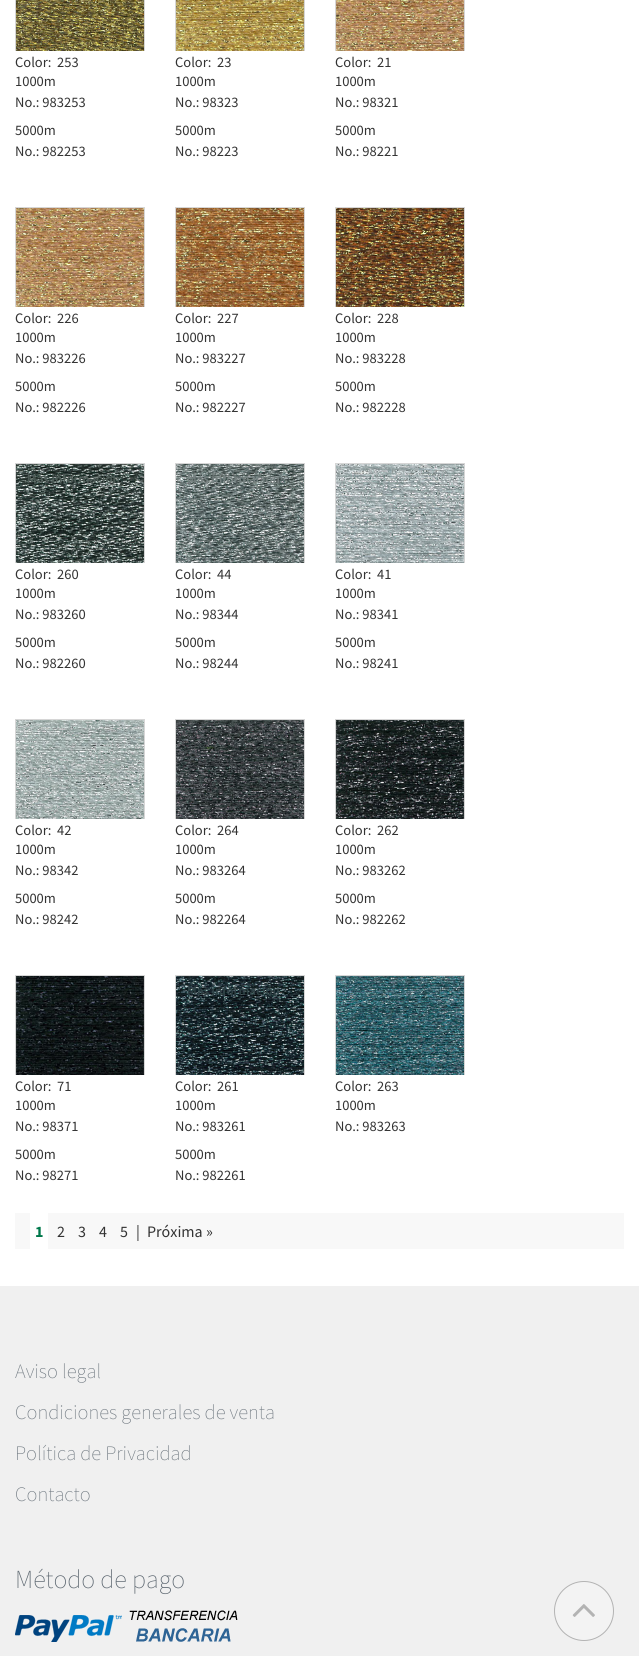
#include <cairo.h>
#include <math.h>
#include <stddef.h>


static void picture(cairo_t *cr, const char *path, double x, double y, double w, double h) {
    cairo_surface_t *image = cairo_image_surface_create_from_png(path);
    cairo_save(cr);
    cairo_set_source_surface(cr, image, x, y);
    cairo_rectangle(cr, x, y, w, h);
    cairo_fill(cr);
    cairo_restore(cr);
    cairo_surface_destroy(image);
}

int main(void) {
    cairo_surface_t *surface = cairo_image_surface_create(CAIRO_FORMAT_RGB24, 639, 1656);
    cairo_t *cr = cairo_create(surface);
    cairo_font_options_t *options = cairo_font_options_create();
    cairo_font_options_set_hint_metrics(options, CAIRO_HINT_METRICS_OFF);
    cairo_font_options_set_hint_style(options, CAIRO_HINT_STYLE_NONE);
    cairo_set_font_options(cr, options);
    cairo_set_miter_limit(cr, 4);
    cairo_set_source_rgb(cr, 1, 1, 1);
    cairo_paint(cr);
    cairo_select_font_face(cr, "Source Sans Pro", CAIRO_FONT_SLANT_NORMAL, CAIRO_FONT_WEIGHT_NORMAL);
    cairo_set_font_size(cr, 14.5);
    cairo_set_source_rgb(cr, 0.2, 0.2, 0.2);
    cairo_move_to(cr, 15, 67);
    cairo_show_text(cr, "Color:");
    cairo_save(cr);
    cairo_rectangle(cr, 15, 0, 130, 51);
    cairo_clip(cr);
    cairo_rectangle(cr, 15.5, -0.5, 129, 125);
    cairo_set_source_rgb(cr, 0.839, 0.839, 0.839);
    cairo_set_line_width(cr, 1);
    cairo_stroke(cr);
    cairo_restore(cr);
    picture(cr, "img1.png", 16, 0, 128, 51);
    cairo_move_to(cr, 57, 67);
    cairo_show_text(cr, "253");
    cairo_move_to(cr, 15, 86);
    cairo_show_text(cr, "1000m");
    cairo_move_to(cr, 15, 107);
    cairo_show_text(cr, "No.: 983253");
    cairo_move_to(cr, 15, 135);
    cairo_show_text(cr, "5000m");
    cairo_move_to(cr, 15, 156);
    cairo_show_text(cr, "No.: 982253");
    cairo_move_to(cr, 175, 67);
    cairo_show_text(cr, "Color:");
    cairo_save(cr);
    cairo_rectangle(cr, 175, 0, 130, 51);
    cairo_clip(cr);
    cairo_rectangle(cr, 175.5, -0.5, 129, 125);
    cairo_set_source_rgb(cr, 0.839, 0.839, 0.839);
    cairo_set_line_width(cr, 1);
    cairo_stroke(cr);
    cairo_restore(cr);
    picture(cr, "img2.png", 176, 0, 128, 51);
    cairo_move_to(cr, 217, 67);
    cairo_show_text(cr, "23");
    cairo_move_to(cr, 175, 86);
    cairo_show_text(cr, "1000m");
    cairo_move_to(cr, 175, 107);
    cairo_show_text(cr, "No.: 98323");
    cairo_move_to(cr, 175, 135);
    cairo_show_text(cr, "5000m");
    cairo_move_to(cr, 175, 156);
    cairo_show_text(cr, "No.: 98223");
    cairo_move_to(cr, 335, 67);
    cairo_show_text(cr, "Color:");
    cairo_save(cr);
    cairo_rectangle(cr, 335, 0, 130, 51);
    cairo_clip(cr);
    cairo_rectangle(cr, 335.5, -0.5, 129, 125);
    cairo_set_source_rgb(cr, 0.839, 0.839, 0.839);
    cairo_set_line_width(cr, 1);
    cairo_stroke(cr);
    cairo_restore(cr);
    picture(cr, "img3.png", 336, 0, 128, 51);
    cairo_move_to(cr, 377, 67);
    cairo_show_text(cr, "21");
    cairo_move_to(cr, 335, 86);
    cairo_show_text(cr, "1000m");
    cairo_move_to(cr, 335, 107);
    cairo_show_text(cr, "No.: 98321");
    cairo_move_to(cr, 335, 135);
    cairo_show_text(cr, "5000m");
    cairo_move_to(cr, 335, 156);
    cairo_show_text(cr, "No.: 98221");
    cairo_move_to(cr, 15, 323);
    cairo_show_text(cr, "Color:");
    cairo_save(cr);
    cairo_rectangle(cr, 15, 207, 130, 100);
    cairo_clip(cr);
    cairo_rectangle(cr, 15.5, 207.5, 129, 173);
    cairo_set_source_rgb(cr, 0.839, 0.839, 0.839);
    cairo_set_line_width(cr, 1);
    cairo_stroke(cr);
    cairo_restore(cr);
    picture(cr, "img4.png", 16, 208, 128, 99);
    cairo_move_to(cr, 57, 323);
    cairo_show_text(cr, "226");
    cairo_move_to(cr, 15, 342);
    cairo_show_text(cr, "1000m");
    cairo_move_to(cr, 15, 363);
    cairo_show_text(cr, "No.: 983226");
    cairo_move_to(cr, 15, 391);
    cairo_show_text(cr, "5000m");
    cairo_move_to(cr, 15, 412);
    cairo_show_text(cr, "No.: 982226");
    cairo_move_to(cr, 175, 323);
    cairo_show_text(cr, "Color:");
    cairo_save(cr);
    cairo_rectangle(cr, 175, 207, 130, 100);
    cairo_clip(cr);
    cairo_rectangle(cr, 175.5, 207.5, 129, 173);
    cairo_set_source_rgb(cr, 0.839, 0.839, 0.839);
    cairo_set_line_width(cr, 1);
    cairo_stroke(cr);
    cairo_restore(cr);
    picture(cr, "img5.png", 176, 208, 128, 99);
    cairo_move_to(cr, 217, 323);
    cairo_show_text(cr, "227");
    cairo_move_to(cr, 175, 342);
    cairo_show_text(cr, "1000m");
    cairo_move_to(cr, 175, 363);
    cairo_show_text(cr, "No.: 983227");
    cairo_move_to(cr, 175, 391);
    cairo_show_text(cr, "5000m");
    cairo_move_to(cr, 175, 412);
    cairo_show_text(cr, "No.: 982227");
    cairo_move_to(cr, 335, 323);
    cairo_show_text(cr, "Color:");
    cairo_save(cr);
    cairo_rectangle(cr, 335, 207, 130, 100);
    cairo_clip(cr);
    cairo_rectangle(cr, 335.5, 207.5, 129, 173);
    cairo_set_source_rgb(cr, 0.839, 0.839, 0.839);
    cairo_set_line_width(cr, 1);
    cairo_stroke(cr);
    cairo_restore(cr);
    picture(cr, "img6.png", 336, 208, 128, 99);
    cairo_move_to(cr, 377, 323);
    cairo_show_text(cr, "228");
    cairo_move_to(cr, 335, 342);
    cairo_show_text(cr, "1000m");
    cairo_move_to(cr, 335, 363);
    cairo_show_text(cr, "No.: 983228");
    cairo_move_to(cr, 335, 391);
    cairo_show_text(cr, "5000m");
    cairo_move_to(cr, 335, 412);
    cairo_show_text(cr, "No.: 982228");
    cairo_move_to(cr, 15, 579);
    cairo_show_text(cr, "Color:");
    cairo_save(cr);
    cairo_rectangle(cr, 15, 463, 130, 100);
    cairo_clip(cr);
    cairo_rectangle(cr, 15.5, 463.5, 129, 173);
    cairo_set_source_rgb(cr, 0.839, 0.839, 0.839);
    cairo_set_line_width(cr, 1);
    cairo_stroke(cr);
    cairo_restore(cr);
    picture(cr, "img7.png", 16, 464, 128, 99);
    cairo_select_font_face(cr, "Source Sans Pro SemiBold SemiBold", CAIRO_FONT_SLANT_NORMAL, CAIRO_FONT_WEIGHT_NORMAL);
    cairo_set_font_size(cr, 13);
    cairo_set_source_rgb(cr, 0.306, 0.357, 0.341);
    cairo_move_to(cr, 27, 483);
    cairo_show_text(cr, "Más información");
    cairo_select_font_face(cr, "Source Sans Pro", CAIRO_FONT_SLANT_NORMAL, CAIRO_FONT_WEIGHT_NORMAL);
    cairo_set_font_size(cr, 14.5);
    cairo_set_source_rgb(cr, 0.2, 0.2, 0.2);
    cairo_move_to(cr, 57, 579);
    cairo_show_text(cr, "260");
    cairo_move_to(cr, 15, 598);
    cairo_show_text(cr, "1000m");
    cairo_move_to(cr, 15, 619);
    cairo_show_text(cr, "No.: 983260");
    cairo_move_to(cr, 15, 647);
    cairo_show_text(cr, "5000m");
    cairo_move_to(cr, 15, 668);
    cairo_show_text(cr, "No.: 982260");
    cairo_move_to(cr, 175, 579);
    cairo_show_text(cr, "Color:");
    cairo_save(cr);
    cairo_rectangle(cr, 175, 463, 130, 100);
    cairo_clip(cr);
    cairo_rectangle(cr, 175.5, 463.5, 129, 173);
    cairo_set_source_rgb(cr, 0.839, 0.839, 0.839);
    cairo_set_line_width(cr, 1);
    cairo_stroke(cr);
    cairo_restore(cr);
    picture(cr, "img8.png", 176, 464, 128, 99);
    cairo_select_font_face(cr, "Source Sans Pro SemiBold SemiBold", CAIRO_FONT_SLANT_NORMAL, CAIRO_FONT_WEIGHT_NORMAL);
    cairo_set_font_size(cr, 13);
    cairo_set_source_rgb(cr, 0.459, 0.502, 0.498);
    cairo_move_to(cr, 187, 483);
    cairo_show_text(cr, "Más información");
    cairo_select_font_face(cr, "Source Sans Pro", CAIRO_FONT_SLANT_NORMAL, CAIRO_FONT_WEIGHT_NORMAL);
    cairo_set_font_size(cr, 14.5);
    cairo_set_source_rgb(cr, 0.2, 0.2, 0.2);
    cairo_move_to(cr, 217, 579);
    cairo_show_text(cr, "44");
    cairo_move_to(cr, 175, 598);
    cairo_show_text(cr, "1000m");
    cairo_move_to(cr, 175, 619);
    cairo_show_text(cr, "No.: 98344");
    cairo_move_to(cr, 175, 647);
    cairo_show_text(cr, "5000m");
    cairo_move_to(cr, 175, 668);
    cairo_show_text(cr, "No.: 98244");
    cairo_move_to(cr, 335, 579);
    cairo_show_text(cr, "Color:");
    cairo_save(cr);
    cairo_rectangle(cr, 335, 463, 130, 100);
    cairo_clip(cr);
    cairo_rectangle(cr, 335.5, 463.5, 129, 173);
    cairo_set_source_rgb(cr, 0.839, 0.839, 0.839);
    cairo_set_line_width(cr, 1);
    cairo_stroke(cr);
    cairo_restore(cr);
    picture(cr, "img9.png", 336, 464, 128, 99);
    cairo_move_to(cr, 377, 579);
    cairo_show_text(cr, "41");
    cairo_move_to(cr, 335, 598);
    cairo_show_text(cr, "1000m");
    cairo_move_to(cr, 335, 619);
    cairo_show_text(cr, "No.: 98341");
    cairo_move_to(cr, 335, 647);
    cairo_show_text(cr, "5000m");
    cairo_move_to(cr, 335, 668);
    cairo_show_text(cr, "No.: 98241");
    cairo_move_to(cr, 15, 835);
    cairo_show_text(cr, "Color:");
    cairo_save(cr);
    cairo_rectangle(cr, 15, 719, 130, 100);
    cairo_clip(cr);
    cairo_rectangle(cr, 15.5, 719.5, 129, 173);
    cairo_set_source_rgb(cr, 0.839, 0.839, 0.839);
    cairo_set_line_width(cr, 1);
    cairo_stroke(cr);
    cairo_restore(cr);
    picture(cr, "img10.png", 16, 720, 128, 99);
    cairo_move_to(cr, 57, 835);
    cairo_show_text(cr, "42");
    cairo_move_to(cr, 15, 854);
    cairo_show_text(cr, "1000m");
    cairo_move_to(cr, 15, 875);
    cairo_show_text(cr, "No.: 98342");
    cairo_move_to(cr, 15, 903);
    cairo_show_text(cr, "5000m");
    cairo_move_to(cr, 15, 924);
    cairo_show_text(cr, "No.: 98242");
    cairo_move_to(cr, 175, 835);
    cairo_show_text(cr, "Color:");
    cairo_save(cr);
    cairo_rectangle(cr, 175, 719, 130, 100);
    cairo_clip(cr);
    cairo_rectangle(cr, 175.5, 719.5, 129, 173);
    cairo_set_source_rgb(cr, 0.839, 0.839, 0.839);
    cairo_set_line_width(cr, 1);
    cairo_stroke(cr);
    cairo_restore(cr);
    picture(cr, "img11.png", 176, 720, 128, 99);
    cairo_move_to(cr, 217, 835);
    cairo_show_text(cr, "264");
    cairo_move_to(cr, 175, 854);
    cairo_show_text(cr, "1000m");
    cairo_move_to(cr, 175, 875);
    cairo_show_text(cr, "No.: 983264");
    cairo_move_to(cr, 175, 903);
    cairo_show_text(cr, "5000m");
    cairo_move_to(cr, 175, 924);
    cairo_show_text(cr, "No.: 982264");
    cairo_move_to(cr, 335, 835);
    cairo_show_text(cr, "Color:");
    cairo_save(cr);
    cairo_rectangle(cr, 335, 719, 130, 100);
    cairo_clip(cr);
    cairo_rectangle(cr, 335.5, 719.5, 129, 173);
    cairo_set_source_rgb(cr, 0.839, 0.839, 0.839);
    cairo_set_line_width(cr, 1);
    cairo_stroke(cr);
    cairo_restore(cr);
    picture(cr, "img12.png", 336, 720, 128, 99);
    cairo_move_to(cr, 377, 835);
    cairo_show_text(cr, "262");
    cairo_move_to(cr, 335, 854);
    cairo_show_text(cr, "1000m");
    cairo_move_to(cr, 335, 875);
    cairo_show_text(cr, "No.: 983262");
    cairo_move_to(cr, 335, 903);
    cairo_show_text(cr, "5000m");
    cairo_move_to(cr, 335, 924);
    cairo_show_text(cr, "No.: 982262");
    cairo_move_to(cr, 15, 1091);
    cairo_show_text(cr, "Color:");
    cairo_save(cr);
    cairo_rectangle(cr, 15, 975, 130, 100);
    cairo_clip(cr);
    cairo_rectangle(cr, 15.5, 975.5, 129, 173);
    cairo_set_source_rgb(cr, 0.839, 0.839, 0.839);
    cairo_set_line_width(cr, 1);
    cairo_stroke(cr);
    cairo_restore(cr);
    picture(cr, "img13.png", 16, 976, 128, 99);
    cairo_move_to(cr, 57, 1091);
    cairo_show_text(cr, "71");
    cairo_move_to(cr, 15, 1110);
    cairo_show_text(cr, "1000m");
    cairo_move_to(cr, 15, 1131);
    cairo_show_text(cr, "No.: 98371");
    cairo_move_to(cr, 15, 1159);
    cairo_show_text(cr, "5000m");
    cairo_move_to(cr, 15, 1180);
    cairo_show_text(cr, "No.: 98271");
    cairo_move_to(cr, 175, 1091);
    cairo_show_text(cr, "Color:");
    cairo_save(cr);
    cairo_rectangle(cr, 175, 975, 130, 100);
    cairo_clip(cr);
    cairo_rectangle(cr, 175.5, 975.5, 129, 173);
    cairo_set_source_rgb(cr, 0.839, 0.839, 0.839);
    cairo_set_line_width(cr, 1);
    cairo_stroke(cr);
    cairo_restore(cr);
    picture(cr, "img14.png", 176, 976, 128, 99);
    cairo_select_font_face(cr, "Source Sans Pro SemiBold SemiBold", CAIRO_FONT_SLANT_NORMAL, CAIRO_FONT_WEIGHT_NORMAL);
    cairo_set_font_size(cr, 13);
    cairo_set_source_rgb(cr, 0.184, 0.255, 0.271);
    cairo_move_to(cr, 187, 995);
    cairo_show_text(cr, "Más información");
    cairo_select_font_face(cr, "Source Sans Pro", CAIRO_FONT_SLANT_NORMAL, CAIRO_FONT_WEIGHT_NORMAL);
    cairo_set_font_size(cr, 14.5);
    cairo_set_source_rgb(cr, 0.2, 0.2, 0.2);
    cairo_move_to(cr, 217, 1091);
    cairo_show_text(cr, "261");
    cairo_move_to(cr, 175, 1110);
    cairo_show_text(cr, "1000m");
    cairo_move_to(cr, 175, 1131);
    cairo_show_text(cr, "No.: 983261");
    cairo_move_to(cr, 175, 1159);
    cairo_show_text(cr, "5000m");
    cairo_move_to(cr, 175, 1180);
    cairo_show_text(cr, "No.: 982261");
    cairo_move_to(cr, 335, 1091);
    cairo_show_text(cr, "Color:");
    cairo_save(cr);
    cairo_rectangle(cr, 335, 975, 130, 100);
    cairo_clip(cr);
    cairo_rectangle(cr, 335.5, 975.5, 129, 173);
    cairo_set_source_rgb(cr, 0.839, 0.839, 0.839);
    cairo_set_line_width(cr, 1);
    cairo_stroke(cr);
    cairo_restore(cr);
    picture(cr, "img15.png", 336, 976, 128, 99);
    cairo_move_to(cr, 377, 1091);
    cairo_show_text(cr, "263");
    cairo_move_to(cr, 335, 1110);
    cairo_show_text(cr, "1000m");
    cairo_move_to(cr, 335, 1131);
    cairo_show_text(cr, "No.: 983263");
    cairo_set_source_rgb(cr, 0.969, 0.969, 0.969);
    cairo_rectangle(cr, 15, 1213, 609, 36);
    cairo_fill(cr);
    cairo_set_source_rgb(cr, 1, 1, 1);
    cairo_rectangle(cr, 30, 1213, 18, 36);
    cairo_fill(cr);
    cairo_select_font_face(cr, "Source Sans Pro", CAIRO_FONT_SLANT_NORMAL, CAIRO_FONT_WEIGHT_BOLD);
    cairo_set_font_size(cr, 16);
    cairo_set_source_rgb(cr, 0, 0.471, 0.294);
    cairo_move_to(cr, 35, 1237);
    cairo_show_text(cr, "1");
    cairo_select_font_face(cr, "Source Sans Pro", CAIRO_FONT_SLANT_NORMAL, CAIRO_FONT_WEIGHT_NORMAL);
    cairo_set_source_rgb(cr, 0.2, 0.2, 0.2);
    cairo_move_to(cr, 57, 1237);
    cairo_show_text(cr, "2");
    cairo_move_to(cr, 78, 1237);
    cairo_show_text(cr, "3");
    cairo_move_to(cr, 99, 1237);
    cairo_show_text(cr, "4");
    cairo_move_to(cr, 120, 1237);
    cairo_show_text(cr, "5");
    cairo_move_to(cr, 136, 1237);
    cairo_show_text(cr, "|");
    cairo_move_to(cr, 147, 1237);
    cairo_show_text(cr, "Próxima »");
    cairo_set_source_rgb(cr, 0.941, 0.941, 0.941);
    cairo_rectangle(cr, 0, 1286, 639, 370);
    cairo_fill(cr);
    cairo_select_font_face(cr, "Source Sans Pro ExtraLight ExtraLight", CAIRO_FONT_SLANT_NORMAL, CAIRO_FONT_WEIGHT_NORMAL);
    cairo_set_font_size(cr, 20.5);
    cairo_set_source_rgb(cr, 0.443, 0.478, 0.51);
    cairo_move_to(cr, 15, 1378);
    cairo_show_text(cr, "Aviso legal");
    cairo_move_to(cr, 15, 1419);
    cairo_show_text(cr, "Condiciones generales de venta");
    cairo_move_to(cr, 15, 1460);
    cairo_show_text(cr, "Política de Privacidad");
    cairo_move_to(cr, 15, 1501);
    cairo_show_text(cr, "Contacto");
    cairo_set_font_size(cr, 26);
    cairo_set_source_rgb(cr, 0.373, 0.412, 0.447);
    cairo_move_to(cr, 15, 1588);
    cairo_show_text(cr, "Método de pago");
    picture(cr, "img16.png", 15, 1615, 107, 27);
    picture(cr, "img17.png", 129, 1610, 109, 32);
    cairo_set_source_rgb(cr, 0.953, 0.953, 0.953);
    cairo_arc(cr, 584, 1611, 29.5, 0, 2 * M_PI);
    cairo_fill_preserve(cr);
    cairo_set_source_rgb(cr, 0.702, 0.702, 0.702);
    cairo_set_line_width(cr, 1);
    cairo_stroke(cr);
    picture(cr, "img18.png", 572, 1604, 23, 13);
    cairo_surface_write_to_png(surface, "page.png");
    cairo_font_options_destroy(options);
    cairo_destroy(cr);
    cairo_surface_destroy(surface);
    return 0;
}
